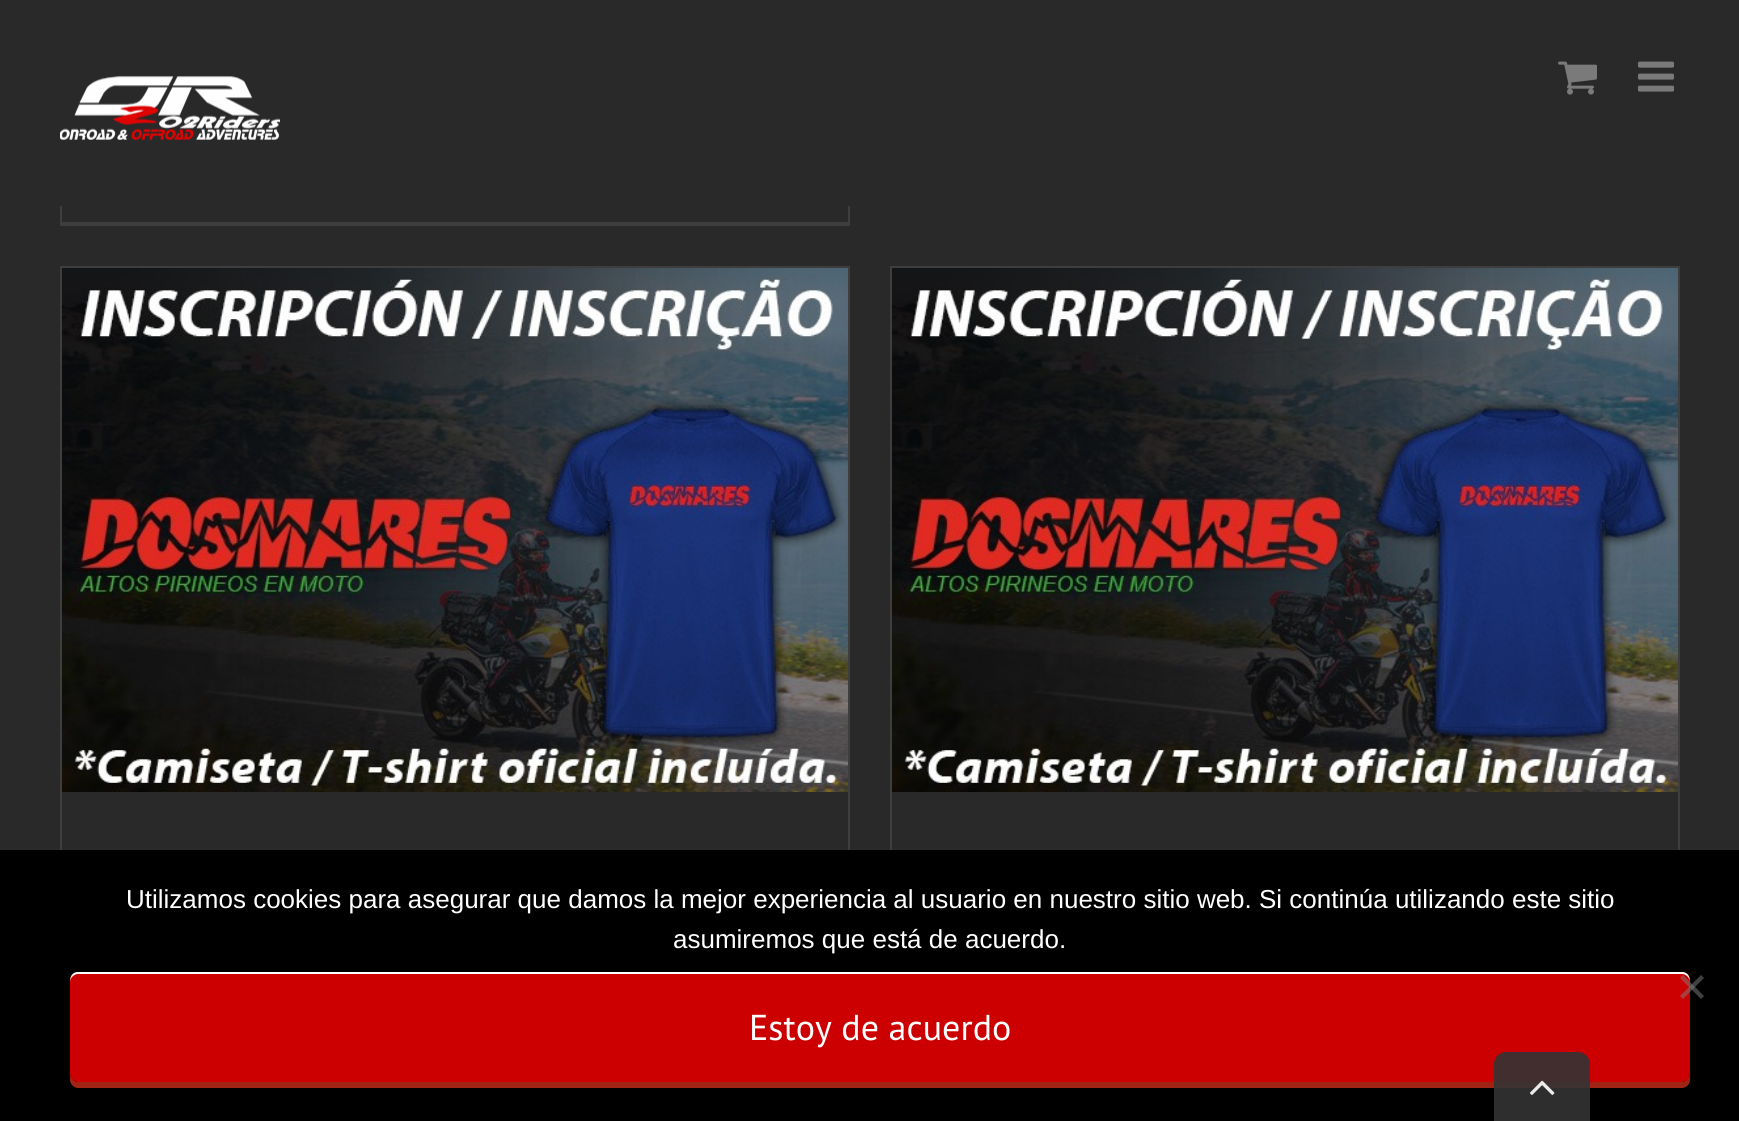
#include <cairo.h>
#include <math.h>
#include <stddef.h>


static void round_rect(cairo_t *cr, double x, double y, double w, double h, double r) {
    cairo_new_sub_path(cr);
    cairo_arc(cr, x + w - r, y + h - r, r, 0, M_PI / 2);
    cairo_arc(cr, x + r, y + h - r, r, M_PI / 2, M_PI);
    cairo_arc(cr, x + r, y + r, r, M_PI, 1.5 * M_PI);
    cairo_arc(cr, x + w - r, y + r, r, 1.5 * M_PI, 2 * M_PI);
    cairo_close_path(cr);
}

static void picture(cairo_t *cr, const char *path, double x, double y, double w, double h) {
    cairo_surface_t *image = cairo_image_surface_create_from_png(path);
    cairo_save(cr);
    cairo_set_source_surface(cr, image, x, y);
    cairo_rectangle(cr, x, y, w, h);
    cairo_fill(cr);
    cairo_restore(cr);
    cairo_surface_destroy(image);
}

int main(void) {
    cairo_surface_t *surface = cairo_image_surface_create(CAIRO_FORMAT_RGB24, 1739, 1121);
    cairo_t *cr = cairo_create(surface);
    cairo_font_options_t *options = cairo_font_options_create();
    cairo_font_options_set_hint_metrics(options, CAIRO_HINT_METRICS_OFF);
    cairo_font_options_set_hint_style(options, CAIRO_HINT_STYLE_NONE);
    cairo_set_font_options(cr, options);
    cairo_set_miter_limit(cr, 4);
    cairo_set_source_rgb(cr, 0.161, 0.161, 0.165);
    cairo_paint(cr);
    picture(cr, "img1.png", 60, 76, 220, 64);
    picture(cr, "img2.png", 1558, 61, 39, 34);
    picture(cr, "img3.png", 1638, 61, 36, 31);
    cairo_set_source_rgb(cr, 0.243, 0.243, 0.243);
    cairo_rectangle(cr, 848, 206, 2, 20);
    cairo_fill(cr);
    cairo_rectangle(cr, 60, 222, 790, 4);
    cairo_fill(cr);
    cairo_rectangle(cr, 60, 206, 2, 20);
    cairo_fill(cr);
    cairo_rectangle(cr, 60, 266, 790, 2);
    cairo_fill(cr);
    cairo_rectangle(cr, 848, 266, 2, 584);
    cairo_fill(cr);
    cairo_rectangle(cr, 60, 266, 2, 584);
    cairo_fill(cr);
    picture(cr, "img4.png", 62, 268, 786, 524);
    cairo_rectangle(cr, 890, 266, 790, 2);
    cairo_fill(cr);
    cairo_rectangle(cr, 1678, 266, 2, 584);
    cairo_fill(cr);
    cairo_rectangle(cr, 890, 266, 2, 584);
    cairo_fill(cr);
    picture(cr, "img5.png", 892, 268, 786, 524);
    cairo_set_source_rgb(cr, 0, 0, 0);
    cairo_rectangle(cr, 0, 850, 1739, 271);
    cairo_fill(cr);
    cairo_select_font_face(cr, "Liberation Sans", CAIRO_FONT_SLANT_NORMAL, CAIRO_FONT_WEIGHT_NORMAL);
    cairo_set_font_size(cr, 26);
    cairo_set_source_rgb(cr, 1, 1, 1);
    cairo_move_to(cr, 126, 908);
    cairo_show_text(cr, "Utilizamos cookies para asegurar que damos la mejor experiencia al usuario en nuestro sitio web. Si continúa utilizando este sitio");
    cairo_move_to(cr, 673, 948);
    cairo_show_text(cr, "asumiremos que está de acuerdo.");
    cairo_set_source_rgb(cr, 0.627, 0.141, 0.086);
    cairo_new_path(cr);
    cairo_move_to(cr, 70, 1074);
    cairo_line_to(cr, 70, 1080);
    cairo_curve_to(cr, 70, 1084, 74, 1088, 78, 1088);
    cairo_line_to(cr, 1682, 1088);
    cairo_curve_to(cr, 1686, 1088, 1690, 1084, 1690, 1080);
    cairo_line_to(cr, 1690, 1074);
    cairo_curve_to(cr, 1690, 1078, 1686, 1082, 1682, 1082);
    cairo_line_to(cr, 78, 1082);
    cairo_curve_to(cr, 74, 1082, 70, 1078, 70, 1074);
    cairo_close_path(cr);
    cairo_fill(cr);
    cairo_set_source_rgb(cr, 0.8, 0, 0);
    round_rect(cr, 70, 972, 1620, 110, 8);
    cairo_fill(cr);
    cairo_set_source_rgb(cr, 1, 1, 1);
    cairo_new_path(cr);
    cairo_move_to(cr, 78, 974);
    cairo_line_to(cr, 1682, 974);
    cairo_curve_to(cr, 1686, 974, 1690, 978, 1690, 982);
    cairo_curve_to(cr, 1690, 977, 1688, 972, 1682, 972);
    cairo_line_to(cr, 78, 972);
    cairo_curve_to(cr, 72, 972, 70, 977, 70, 982);
    cairo_curve_to(cr, 70, 978, 74, 974, 78, 974);
    cairo_close_path(cr);
    cairo_fill(cr);
    cairo_set_source_rgba(cr, 0.502, 0.502, 0.502, 0.5);
    cairo_new_path(cr);
    cairo_move_to(cr, 1701, 975);
    cairo_line_to(cr, 1704, 978);
    cairo_line_to(cr, 1683, 999);
    cairo_line_to(cr, 1680, 996);
    cairo_close_path(cr);
    cairo_fill(cr);
    cairo_new_path(cr);
    cairo_move_to(cr, 1680, 978);
    cairo_line_to(cr, 1683, 975);
    cairo_line_to(cr, 1704, 996);
    cairo_line_to(cr, 1701, 999);
    cairo_close_path(cr);
    cairo_fill(cr);
    cairo_select_font_face(cr, "PT Sans", CAIRO_FONT_SLANT_NORMAL, CAIRO_FONT_WEIGHT_NORMAL);
    cairo_set_font_size(cr, 36);
    cairo_set_source_rgb(cr, 1, 1, 1);
    cairo_move_to(cr, 749, 1040);
    cairo_show_text(cr, "Estoy de acuerdo");
    cairo_set_source_rgba(cr, 0.2, 0.2, 0.2, 0.9);
    cairo_new_path(cr);
    cairo_move_to(cr, 1506, 1052);
    cairo_line_to(cr, 1578, 1052);
    cairo_curve_to(cr, 1584.5, 1052, 1590, 1057.5, 1590, 1064);
    cairo_line_to(cr, 1590, 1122);
    cairo_line_to(cr, 1494, 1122);
    cairo_line_to(cr, 1494, 1064);
    cairo_curve_to(cr, 1494, 1057.5, 1499.5, 1052, 1506, 1052);
    cairo_close_path(cr);
    cairo_fill(cr);
    picture(cr, "img6.png", 1530, 1080, 25, 15);
    cairo_surface_write_to_png(surface, "page.png");
    cairo_font_options_destroy(options);
    cairo_destroy(cr);
    cairo_surface_destroy(surface);
    return 0;
}
